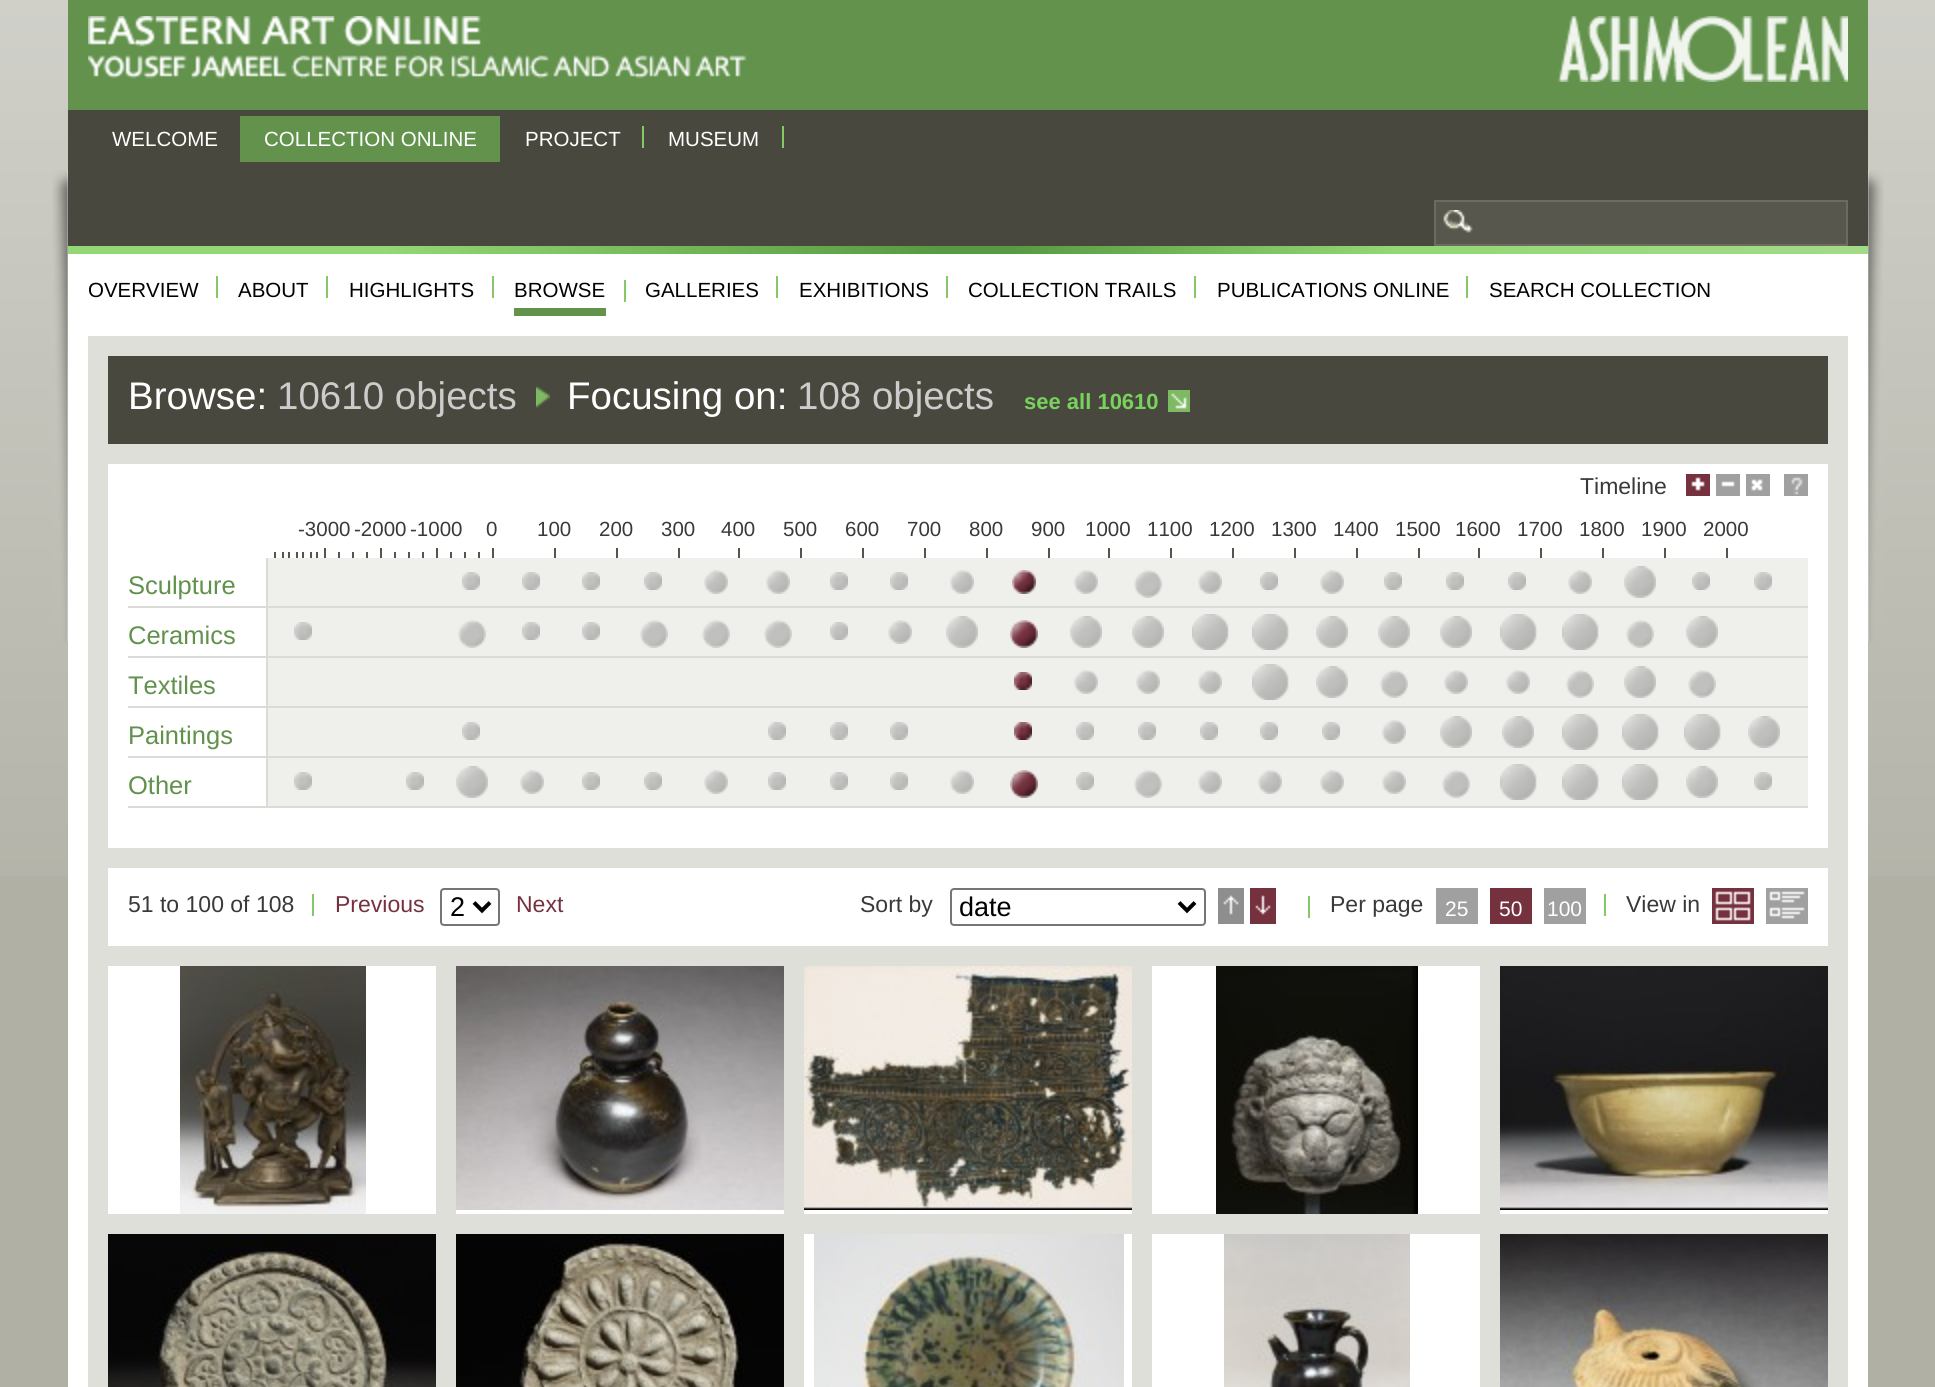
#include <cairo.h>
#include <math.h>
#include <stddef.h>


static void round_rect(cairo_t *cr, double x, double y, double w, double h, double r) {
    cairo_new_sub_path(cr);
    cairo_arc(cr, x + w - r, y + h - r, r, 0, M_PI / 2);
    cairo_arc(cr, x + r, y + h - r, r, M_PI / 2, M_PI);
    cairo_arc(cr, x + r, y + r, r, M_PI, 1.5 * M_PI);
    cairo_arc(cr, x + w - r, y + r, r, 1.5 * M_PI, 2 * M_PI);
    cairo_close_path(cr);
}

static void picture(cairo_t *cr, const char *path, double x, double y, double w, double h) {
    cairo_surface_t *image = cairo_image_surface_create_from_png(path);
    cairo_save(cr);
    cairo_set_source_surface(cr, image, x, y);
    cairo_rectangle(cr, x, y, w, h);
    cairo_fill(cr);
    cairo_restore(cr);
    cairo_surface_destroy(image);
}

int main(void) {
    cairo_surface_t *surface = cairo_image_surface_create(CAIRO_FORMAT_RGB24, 1935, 1387);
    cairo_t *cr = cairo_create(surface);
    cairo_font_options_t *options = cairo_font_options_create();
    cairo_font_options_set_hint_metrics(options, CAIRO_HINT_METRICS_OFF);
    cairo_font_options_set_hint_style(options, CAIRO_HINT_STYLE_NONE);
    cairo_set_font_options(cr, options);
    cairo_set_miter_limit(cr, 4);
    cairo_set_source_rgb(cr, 0.69, 0.69, 0.647);
    cairo_paint(cr);
    picture(cr, "img1.png", 0, 0, 1935, 876);
    picture(cr, "img2.png", 52, 170, 1832, 472);
    cairo_set_source_rgb(cr, 0.384, 0.573, 0.298);
    cairo_rectangle(cr, 68, 0, 1800, 110);
    cairo_fill(cr);
    picture(cr, "img3.png", 88, 16, 659, 63);
    picture(cr, "img4.png", 1558, 16, 290, 66);
    cairo_set_source_rgb(cr, 0.282, 0.282, 0.243);
    cairo_rectangle(cr, 68, 110, 1800, 136);
    cairo_fill(cr);
    cairo_select_font_face(cr, "Liberation Sans", CAIRO_FONT_SLANT_NORMAL, CAIRO_FONT_WEIGHT_NORMAL);
    cairo_set_font_size(cr, 20.5);
    cairo_set_source_rgb(cr, 1, 1, 1);
    cairo_move_to(cr, 112, 146);
    cairo_show_text(cr, "WELCOME");
    cairo_set_source_rgb(cr, 0.384, 0.573, 0.298);
    cairo_rectangle(cr, 240, 116, 260, 46);
    cairo_fill(cr);
    cairo_set_source_rgb(cr, 1, 1, 1);
    cairo_move_to(cr, 264, 146);
    cairo_show_text(cr, "COLLECTION ONLINE");
    cairo_set_source_rgb(cr, 0.518, 0.784, 0.404);
    cairo_rectangle(cr, 642, 126, 2, 22);
    cairo_fill(cr);
    cairo_set_source_rgb(cr, 1, 1, 1);
    cairo_move_to(cr, 525, 146);
    cairo_show_text(cr, "PROJECT");
    cairo_set_source_rgb(cr, 0.518, 0.784, 0.404);
    cairo_rectangle(cr, 782, 126, 2, 22);
    cairo_fill(cr);
    cairo_set_source_rgb(cr, 1, 1, 1);
    cairo_move_to(cr, 668, 146);
    cairo_show_text(cr, "MUSEUM");
    cairo_set_source_rgb(cr, 0.341, 0.341, 0.306);
    cairo_rectangle(cr, 1436, 202, 410, 42);
    cairo_fill(cr);
    picture(cr, "img5.png", 1443, 210, 30, 23);
    cairo_rectangle(cr, 1435, 201, 412, 44);
    cairo_set_source_rgb(cr, 0.42, 0.42, 0.373);
    cairo_stroke(cr);
    cairo_set_source_rgb(cr, 1, 1, 1);
    cairo_rectangle(cr, 68, 254, 1800, 1133);
    cairo_fill(cr);
    picture(cr, "img6.png", 68, 246, 1800, 8);
    cairo_set_source_rgb(cr, 0.518, 0.784, 0.404);
    cairo_rectangle(cr, 216, 276, 2, 22);
    cairo_fill(cr);
    cairo_set_source_rgb(cr, 0, 0, 0);
    cairo_move_to(cr, 88, 297);
    cairo_show_text(cr, "OVERVIEW");
    cairo_set_source_rgb(cr, 0.518, 0.784, 0.404);
    cairo_rectangle(cr, 326, 276, 2, 22);
    cairo_fill(cr);
    cairo_set_source_rgb(cr, 0, 0, 0);
    cairo_move_to(cr, 238, 297);
    cairo_show_text(cr, "ABOUT");
    cairo_set_source_rgb(cr, 0.518, 0.784, 0.404);
    cairo_rectangle(cr, 492, 276, 2, 22);
    cairo_fill(cr);
    cairo_set_source_rgb(cr, 0, 0, 0);
    cairo_move_to(cr, 349, 297);
    cairo_show_text(cr, "HIGHLIGHTS");
    cairo_set_source_rgb(cr, 0.518, 0.784, 0.404);
    cairo_rectangle(cr, 624, 280, 2, 22);
    cairo_fill(cr);
    cairo_set_source_rgb(cr, 0.384, 0.573, 0.298);
    cairo_rectangle(cr, 514, 308, 92, 8);
    cairo_fill(cr);
    cairo_set_source_rgb(cr, 0, 0, 0);
    cairo_move_to(cr, 514, 297);
    cairo_show_text(cr, "BROWSE");
    cairo_set_source_rgb(cr, 0.518, 0.784, 0.404);
    cairo_rectangle(cr, 776, 276, 2, 22);
    cairo_fill(cr);
    cairo_set_source_rgb(cr, 0, 0, 0);
    cairo_move_to(cr, 645, 297);
    cairo_show_text(cr, "GALLERIES");
    cairo_set_source_rgb(cr, 0.518, 0.784, 0.404);
    cairo_rectangle(cr, 946, 276, 2, 22);
    cairo_fill(cr);
    cairo_set_source_rgb(cr, 0, 0, 0);
    cairo_move_to(cr, 799, 297);
    cairo_show_text(cr, "EXHIBITIONS");
    cairo_set_source_rgb(cr, 0.518, 0.784, 0.404);
    cairo_rectangle(cr, 1194, 276, 2, 22);
    cairo_fill(cr);
    cairo_set_source_rgb(cr, 0, 0, 0);
    cairo_move_to(cr, 968, 297);
    cairo_show_text(cr, "COLLECTION TRAILS");
    cairo_set_source_rgb(cr, 0.518, 0.784, 0.404);
    cairo_rectangle(cr, 1466, 276, 2, 22);
    cairo_fill(cr);
    cairo_set_source_rgb(cr, 0, 0, 0);
    cairo_move_to(cr, 1217, 297);
    cairo_show_text(cr, "PUBLICATIONS ONLINE");
    cairo_move_to(cr, 1489, 297);
    cairo_show_text(cr, "SEARCH COLLECTION");
    cairo_set_source_rgb(cr, 0.875, 0.875, 0.855);
    cairo_rectangle(cr, 88, 336, 1760, 1051);
    cairo_fill(cr);
    cairo_set_source_rgb(cr, 0.282, 0.282, 0.243);
    cairo_rectangle(cr, 108, 356, 1720, 88);
    cairo_fill(cr);
    cairo_set_font_size(cr, 38.5);
    cairo_set_source_rgb(cr, 1, 1, 1);
    cairo_move_to(cr, 128, 409);
    cairo_show_text(cr, "Browse:");
    cairo_set_source_rgb(cr, 0.8, 0.8, 0.8);
    cairo_move_to(cr, 277, 409);
    cairo_show_text(cr, "10610 objects");
    picture(cr, "img7.png", 536, 386, 14, 22);
    cairo_set_source_rgb(cr, 1, 1, 1);
    cairo_move_to(cr, 567, 409);
    cairo_show_text(cr, "Focusing on:");
    cairo_set_source_rgb(cr, 0.8, 0.8, 0.8);
    cairo_move_to(cr, 797, 409);
    cairo_show_text(cr, "108 objects");
    cairo_select_font_face(cr, "Liberation Sans", CAIRO_FONT_SLANT_NORMAL, CAIRO_FONT_WEIGHT_BOLD);
    cairo_set_font_size(cr, 22);
    cairo_set_source_rgb(cr, 0.478, 0.824, 0.369);
    cairo_move_to(cr, 1024, 409);
    cairo_show_text(cr, "see all 10610");
    picture(cr, "img8.png", 1168, 390, 22, 22);
    cairo_set_source_rgb(cr, 1, 1, 1);
    cairo_rectangle(cr, 108, 464, 1720, 384);
    cairo_fill(cr);
    cairo_select_font_face(cr, "Liberation Sans", CAIRO_FONT_SLANT_NORMAL, CAIRO_FONT_WEIGHT_NORMAL);
    cairo_set_font_size(cr, 23);
    cairo_set_source_rgb(cr, 0.22, 0.224, 0.22);
    cairo_move_to(cr, 1580, 494);
    cairo_show_text(cr, "Timeline");
    picture(cr, "img9.png", 1686, 474, 24, 22);
    picture(cr, "img10.png", 1716, 474, 24, 22);
    picture(cr, "img11.png", 1746, 474, 24, 22);
    picture(cr, "img12.png", 1784, 474, 24, 22);
    cairo_set_source_rgb(cr, 0.333, 0.333, 0.306);
    cairo_rectangle(cr, 324, 548, 2, 10);
    cairo_fill(cr);
    cairo_set_font_size(cr, 20.5);
    cairo_set_source_rgb(cr, 0.22, 0.224, 0.22);
    cairo_move_to(cr, 298, 536);
    cairo_show_text(cr, "-3000");
    cairo_set_source_rgb(cr, 0.333, 0.333, 0.306);
    cairo_rectangle(cr, 380, 548, 2, 10);
    cairo_fill(cr);
    cairo_set_source_rgb(cr, 0.22, 0.224, 0.22);
    cairo_move_to(cr, 354, 536);
    cairo_show_text(cr, "-2000");
    cairo_set_source_rgb(cr, 0.333, 0.333, 0.306);
    cairo_rectangle(cr, 436, 548, 2, 10);
    cairo_fill(cr);
    cairo_set_source_rgb(cr, 0.22, 0.224, 0.22);
    cairo_move_to(cr, 410, 536);
    cairo_show_text(cr, "-1000");
    cairo_set_source_rgb(cr, 0.333, 0.333, 0.306);
    cairo_rectangle(cr, 492, 548, 2, 10);
    cairo_fill(cr);
    cairo_set_source_rgb(cr, 0.22, 0.224, 0.22);
    cairo_move_to(cr, 486, 536);
    cairo_show_text(cr, "0");
    cairo_set_source_rgb(cr, 0.333, 0.333, 0.306);
    cairo_rectangle(cr, 554, 548, 2, 10);
    cairo_fill(cr);
    cairo_set_source_rgb(cr, 0.22, 0.224, 0.22);
    cairo_move_to(cr, 537, 536);
    cairo_show_text(cr, "100");
    cairo_set_source_rgb(cr, 0.333, 0.333, 0.306);
    cairo_rectangle(cr, 616, 548, 2, 10);
    cairo_fill(cr);
    cairo_set_source_rgb(cr, 0.22, 0.224, 0.22);
    cairo_move_to(cr, 599, 536);
    cairo_show_text(cr, "200");
    cairo_set_source_rgb(cr, 0.333, 0.333, 0.306);
    cairo_rectangle(cr, 678, 548, 2, 10);
    cairo_fill(cr);
    cairo_set_source_rgb(cr, 0.22, 0.224, 0.22);
    cairo_move_to(cr, 661, 536);
    cairo_show_text(cr, "300");
    cairo_set_source_rgb(cr, 0.333, 0.333, 0.306);
    cairo_rectangle(cr, 738, 548, 2, 10);
    cairo_fill(cr);
    cairo_set_source_rgb(cr, 0.22, 0.224, 0.22);
    cairo_move_to(cr, 721, 536);
    cairo_show_text(cr, "400");
    cairo_set_source_rgb(cr, 0.333, 0.333, 0.306);
    cairo_rectangle(cr, 800, 548, 2, 10);
    cairo_fill(cr);
    cairo_set_source_rgb(cr, 0.22, 0.224, 0.22);
    cairo_move_to(cr, 783, 536);
    cairo_show_text(cr, "500");
    cairo_set_source_rgb(cr, 0.333, 0.333, 0.306);
    cairo_rectangle(cr, 862, 548, 2, 10);
    cairo_fill(cr);
    cairo_set_source_rgb(cr, 0.22, 0.224, 0.22);
    cairo_move_to(cr, 845, 536);
    cairo_show_text(cr, "600");
    cairo_set_source_rgb(cr, 0.333, 0.333, 0.306);
    cairo_rectangle(cr, 924, 548, 2, 10);
    cairo_fill(cr);
    cairo_set_source_rgb(cr, 0.22, 0.224, 0.22);
    cairo_move_to(cr, 907, 536);
    cairo_show_text(cr, "700");
    cairo_set_source_rgb(cr, 0.333, 0.333, 0.306);
    cairo_rectangle(cr, 986, 548, 2, 10);
    cairo_fill(cr);
    cairo_set_source_rgb(cr, 0.22, 0.224, 0.22);
    cairo_move_to(cr, 969, 536);
    cairo_show_text(cr, "800");
    cairo_set_source_rgb(cr, 0.333, 0.333, 0.306);
    cairo_rectangle(cr, 1048, 548, 2, 10);
    cairo_fill(cr);
    cairo_set_source_rgb(cr, 0.22, 0.224, 0.22);
    cairo_move_to(cr, 1031, 536);
    cairo_show_text(cr, "900");
    cairo_set_source_rgb(cr, 0.333, 0.333, 0.306);
    cairo_rectangle(cr, 1108, 548, 2, 10);
    cairo_fill(cr);
    cairo_set_source_rgb(cr, 0.22, 0.224, 0.22);
    cairo_move_to(cr, 1085, 536);
    cairo_show_text(cr, "1000");
    cairo_set_source_rgb(cr, 0.333, 0.333, 0.306);
    cairo_rectangle(cr, 1170, 548, 2, 10);
    cairo_fill(cr);
    cairo_set_source_rgb(cr, 0.22, 0.224, 0.22);
    cairo_move_to(cr, 1147, 536);
    cairo_show_text(cr, "1100");
    cairo_set_source_rgb(cr, 0.333, 0.333, 0.306);
    cairo_rectangle(cr, 1232, 548, 2, 10);
    cairo_fill(cr);
    cairo_set_source_rgb(cr, 0.22, 0.224, 0.22);
    cairo_move_to(cr, 1209, 536);
    cairo_show_text(cr, "1200");
    cairo_set_source_rgb(cr, 0.333, 0.333, 0.306);
    cairo_rectangle(cr, 1294, 548, 2, 10);
    cairo_fill(cr);
    cairo_set_source_rgb(cr, 0.22, 0.224, 0.22);
    cairo_move_to(cr, 1271, 536);
    cairo_show_text(cr, "1300");
    cairo_set_source_rgb(cr, 0.333, 0.333, 0.306);
    cairo_rectangle(cr, 1356, 548, 2, 10);
    cairo_fill(cr);
    cairo_set_source_rgb(cr, 0.22, 0.224, 0.22);
    cairo_move_to(cr, 1333, 536);
    cairo_show_text(cr, "1400");
    cairo_set_source_rgb(cr, 0.333, 0.333, 0.306);
    cairo_rectangle(cr, 1418, 548, 2, 10);
    cairo_fill(cr);
    cairo_set_source_rgb(cr, 0.22, 0.224, 0.22);
    cairo_move_to(cr, 1395, 536);
    cairo_show_text(cr, "1500");
    cairo_set_source_rgb(cr, 0.333, 0.333, 0.306);
    cairo_rectangle(cr, 1478, 548, 2, 10);
    cairo_fill(cr);
    cairo_set_source_rgb(cr, 0.22, 0.224, 0.22);
    cairo_move_to(cr, 1455, 536);
    cairo_show_text(cr, "1600");
    cairo_set_source_rgb(cr, 0.333, 0.333, 0.306);
    cairo_rectangle(cr, 1540, 548, 2, 10);
    cairo_fill(cr);
    cairo_set_source_rgb(cr, 0.22, 0.224, 0.22);
    cairo_move_to(cr, 1517, 536);
    cairo_show_text(cr, "1700");
    cairo_set_source_rgb(cr, 0.333, 0.333, 0.306);
    cairo_rectangle(cr, 1602, 548, 2, 10);
    cairo_fill(cr);
    cairo_set_source_rgb(cr, 0.22, 0.224, 0.22);
    cairo_move_to(cr, 1579, 536);
    cairo_show_text(cr, "1800");
    cairo_set_source_rgb(cr, 0.333, 0.333, 0.306);
    cairo_rectangle(cr, 1664, 548, 2, 10);
    cairo_fill(cr);
    cairo_set_source_rgb(cr, 0.22, 0.224, 0.22);
    cairo_move_to(cr, 1641, 536);
    cairo_show_text(cr, "1900");
    cairo_set_source_rgb(cr, 0.333, 0.333, 0.306);
    cairo_rectangle(cr, 1726, 548, 2, 10);
    cairo_fill(cr);
    cairo_set_source_rgb(cr, 0.22, 0.224, 0.22);
    cairo_move_to(cr, 1703, 536);
    cairo_show_text(cr, "2000");
    cairo_set_source_rgb(cr, 0.333, 0.333, 0.306);
    cairo_rectangle(cr, 274, 552, 2, 6);
    cairo_fill(cr);
    cairo_rectangle(cr, 282, 552, 2, 6);
    cairo_fill(cr);
    cairo_rectangle(cr, 288, 552, 2, 6);
    cairo_fill(cr);
    cairo_rectangle(cr, 296, 552, 2, 6);
    cairo_fill(cr);
    cairo_rectangle(cr, 302, 552, 2, 6);
    cairo_fill(cr);
    cairo_rectangle(cr, 310, 552, 2, 6);
    cairo_fill(cr);
    cairo_rectangle(cr, 316, 552, 2, 6);
    cairo_fill(cr);
    cairo_rectangle(cr, 338, 552, 2, 6);
    cairo_fill(cr);
    cairo_rectangle(cr, 352, 552, 2, 6);
    cairo_fill(cr);
    cairo_rectangle(cr, 366, 552, 2, 6);
    cairo_fill(cr);
    cairo_rectangle(cr, 394, 552, 2, 6);
    cairo_fill(cr);
    cairo_rectangle(cr, 408, 552, 2, 6);
    cairo_fill(cr);
    cairo_rectangle(cr, 422, 552, 2, 6);
    cairo_fill(cr);
    cairo_rectangle(cr, 450, 552, 2, 6);
    cairo_fill(cr);
    cairo_rectangle(cr, 464, 552, 2, 6);
    cairo_fill(cr);
    cairo_rectangle(cr, 478, 552, 2, 6);
    cairo_fill(cr);
    cairo_set_source_rgb(cr, 0.937, 0.937, 0.925);
    cairo_rectangle(cr, 268, 558, 1540, 48);
    cairo_fill(cr);
    cairo_set_source_rgb(cr, 0.855, 0.855, 0.843);
    cairo_rectangle(cr, 128, 606, 1680, 2);
    cairo_fill(cr);
    cairo_set_font_size(cr, 25.5);
    cairo_set_source_rgb(cr, 0.376, 0.573, 0.298);
    cairo_move_to(cr, 128, 594);
    cairo_show_text(cr, "Sculpture");
    cairo_set_source_rgb(cr, 0.855, 0.855, 0.843);
    cairo_rectangle(cr, 266, 558, 2, 48);
    cairo_fill(cr);
    picture(cr, "img13.png", 462, 572, 18, 18);
    picture(cr, "img13.png", 522, 572, 18, 18);
    picture(cr, "img13.png", 582, 572, 18, 18);
    picture(cr, "img13.png", 644, 572, 18, 18);
    picture(cr, "img14.png", 704, 570, 24, 24);
    picture(cr, "img14.png", 766, 570, 24, 24);
    picture(cr, "img13.png", 830, 572, 18, 18);
    picture(cr, "img13.png", 890, 572, 18, 18);
    picture(cr, "img14.png", 950, 570, 24, 24);
    picture(cr, "img15.png", 1012, 570, 24, 24);
    picture(cr, "img14.png", 1074, 570, 24, 24);
    picture(cr, "img16.png", 1134, 570, 28, 28);
    picture(cr, "img14.png", 1198, 570, 24, 24);
    picture(cr, "img13.png", 1260, 572, 18, 18);
    picture(cr, "img14.png", 1320, 570, 24, 24);
    picture(cr, "img13.png", 1384, 572, 18, 18);
    picture(cr, "img13.png", 1446, 572, 18, 18);
    picture(cr, "img13.png", 1508, 572, 18, 18);
    picture(cr, "img14.png", 1568, 570, 24, 24);
    picture(cr, "img17.png", 1624, 566, 32, 32);
    picture(cr, "img13.png", 1692, 572, 18, 18);
    picture(cr, "img13.png", 1754, 572, 18, 18);
    cairo_set_source_rgb(cr, 0.937, 0.937, 0.925);
    cairo_rectangle(cr, 268, 608, 1540, 48);
    cairo_fill(cr);
    cairo_set_source_rgb(cr, 0.855, 0.855, 0.843);
    cairo_rectangle(cr, 128, 656, 1680, 2);
    cairo_fill(cr);
    cairo_set_source_rgb(cr, 0.376, 0.573, 0.298);
    cairo_move_to(cr, 128, 644);
    cairo_show_text(cr, "Ceramics");
    cairo_set_source_rgb(cr, 0.855, 0.855, 0.843);
    cairo_rectangle(cr, 266, 608, 2, 48);
    cairo_fill(cr);
    picture(cr, "img13.png", 294, 622, 18, 18);
    picture(cr, "img16.png", 458, 620, 28, 28);
    picture(cr, "img13.png", 522, 622, 18, 18);
    picture(cr, "img13.png", 582, 622, 18, 18);
    picture(cr, "img16.png", 640, 620, 28, 28);
    picture(cr, "img16.png", 702, 620, 28, 28);
    picture(cr, "img16.png", 764, 620, 28, 28);
    picture(cr, "img13.png", 830, 622, 18, 18);
    picture(cr, "img14.png", 888, 620, 24, 24);
    picture(cr, "img17.png", 946, 616, 32, 32);
    picture(cr, "img18.png", 1010, 620, 28, 28);
    picture(cr, "img17.png", 1070, 616, 32, 32);
    picture(cr, "img17.png", 1132, 616, 32, 32);
    picture(cr, "img19.png", 1192, 614, 37, 36);
    picture(cr, "img19.png", 1252, 614, 37, 36);
    picture(cr, "img17.png", 1316, 616, 32, 32);
    picture(cr, "img17.png", 1378, 616, 32, 32);
    picture(cr, "img17.png", 1440, 616, 32, 32);
    picture(cr, "img19.png", 1500, 614, 37, 36);
    picture(cr, "img19.png", 1562, 614, 37, 36);
    picture(cr, "img16.png", 1626, 620, 28, 28);
    picture(cr, "img17.png", 1686, 616, 32, 32);
    cairo_set_source_rgb(cr, 0.937, 0.937, 0.925);
    cairo_rectangle(cr, 268, 658, 1540, 48);
    cairo_fill(cr);
    cairo_set_source_rgb(cr, 0.855, 0.855, 0.843);
    cairo_rectangle(cr, 128, 706, 1680, 2);
    cairo_fill(cr);
    cairo_set_source_rgb(cr, 0.376, 0.573, 0.298);
    cairo_move_to(cr, 128, 694);
    cairo_show_text(cr, "Textiles");
    cairo_set_source_rgb(cr, 0.855, 0.855, 0.843);
    cairo_rectangle(cr, 266, 658, 2, 48);
    cairo_fill(cr);
    picture(cr, "img20.png", 1014, 672, 18, 18);
    picture(cr, "img14.png", 1074, 670, 24, 24);
    picture(cr, "img14.png", 1136, 670, 24, 24);
    picture(cr, "img14.png", 1198, 670, 24, 24);
    picture(cr, "img19.png", 1252, 664, 37, 36);
    picture(cr, "img17.png", 1316, 666, 32, 32);
    picture(cr, "img16.png", 1380, 670, 28, 28);
    picture(cr, "img14.png", 1444, 670, 24, 24);
    picture(cr, "img14.png", 1506, 670, 24, 24);
    picture(cr, "img16.png", 1566, 670, 28, 28);
    picture(cr, "img17.png", 1624, 666, 32, 32);
    picture(cr, "img16.png", 1688, 670, 28, 28);
    cairo_set_source_rgb(cr, 0.937, 0.937, 0.925);
    cairo_rectangle(cr, 268, 708, 1540, 48);
    cairo_fill(cr);
    cairo_set_source_rgb(cr, 0.855, 0.855, 0.843);
    cairo_rectangle(cr, 128, 756, 1680, 2);
    cairo_fill(cr);
    cairo_set_source_rgb(cr, 0.376, 0.573, 0.298);
    cairo_move_to(cr, 128, 744);
    cairo_show_text(cr, "Paintings");
    cairo_set_source_rgb(cr, 0.855, 0.855, 0.843);
    cairo_rectangle(cr, 266, 708, 2, 48);
    cairo_fill(cr);
    picture(cr, "img13.png", 462, 722, 18, 18);
    picture(cr, "img13.png", 768, 722, 18, 18);
    picture(cr, "img13.png", 830, 722, 18, 18);
    picture(cr, "img13.png", 890, 722, 18, 18);
    picture(cr, "img20.png", 1014, 722, 18, 18);
    picture(cr, "img13.png", 1076, 722, 18, 18);
    picture(cr, "img13.png", 1138, 722, 18, 18);
    picture(cr, "img13.png", 1200, 722, 18, 18);
    picture(cr, "img13.png", 1260, 722, 18, 18);
    picture(cr, "img13.png", 1322, 722, 18, 18);
    picture(cr, "img14.png", 1382, 720, 24, 24);
    picture(cr, "img17.png", 1440, 716, 32, 32);
    picture(cr, "img17.png", 1502, 716, 32, 32);
    picture(cr, "img19.png", 1562, 714, 37, 36);
    picture(cr, "img19.png", 1622, 714, 37, 36);
    picture(cr, "img19.png", 1684, 714, 37, 36);
    picture(cr, "img17.png", 1748, 716, 32, 32);
    cairo_set_source_rgb(cr, 0.937, 0.937, 0.925);
    cairo_rectangle(cr, 268, 758, 1540, 48);
    cairo_fill(cr);
    cairo_set_source_rgb(cr, 0.855, 0.855, 0.843);
    cairo_rectangle(cr, 128, 806, 1680, 2);
    cairo_fill(cr);
    cairo_set_source_rgb(cr, 0.376, 0.573, 0.298);
    cairo_move_to(cr, 128, 794);
    cairo_show_text(cr, "Other");
    cairo_set_source_rgb(cr, 0.855, 0.855, 0.843);
    cairo_rectangle(cr, 266, 758, 2, 48);
    cairo_fill(cr);
    picture(cr, "img13.png", 294, 772, 18, 18);
    picture(cr, "img13.png", 406, 772, 18, 18);
    picture(cr, "img17.png", 456, 766, 32, 32);
    picture(cr, "img14.png", 520, 770, 24, 24);
    picture(cr, "img13.png", 582, 772, 18, 18);
    picture(cr, "img13.png", 644, 772, 18, 18);
    picture(cr, "img14.png", 704, 770, 24, 24);
    picture(cr, "img13.png", 768, 772, 18, 18);
    picture(cr, "img13.png", 830, 772, 18, 18);
    picture(cr, "img13.png", 890, 772, 18, 18);
    picture(cr, "img14.png", 950, 770, 24, 24);
    picture(cr, "img18.png", 1010, 770, 28, 28);
    picture(cr, "img13.png", 1076, 772, 18, 18);
    picture(cr, "img16.png", 1134, 770, 28, 28);
    picture(cr, "img14.png", 1198, 770, 24, 24);
    picture(cr, "img14.png", 1258, 770, 24, 24);
    picture(cr, "img14.png", 1320, 770, 24, 24);
    picture(cr, "img14.png", 1382, 770, 24, 24);
    picture(cr, "img16.png", 1442, 770, 28, 28);
    picture(cr, "img19.png", 1500, 764, 37, 36);
    picture(cr, "img19.png", 1562, 764, 37, 36);
    picture(cr, "img19.png", 1622, 764, 37, 36);
    picture(cr, "img17.png", 1686, 766, 32, 32);
    picture(cr, "img13.png", 1754, 772, 18, 18);
    cairo_set_source_rgb(cr, 1, 1, 1);
    cairo_rectangle(cr, 108, 868, 1720, 78);
    cairo_fill(cr);
    cairo_set_source_rgb(cr, 0.518, 0.784, 0.404);
    cairo_rectangle(cr, 312, 894, 2, 22);
    cairo_fill(cr);
    cairo_set_font_size(cr, 23);
    cairo_set_source_rgb(cr, 0.22, 0.224, 0.22);
    cairo_move_to(cr, 128, 912);
    cairo_show_text(cr, "51 to 100 of 108");
    cairo_set_source_rgb(cr, 0.463, 0.192, 0.247);
    cairo_move_to(cr, 335, 912);
    cairo_show_text(cr, "Previous");
    round_rect(cr, 441, 889, 58, 36, 3);
    cairo_set_source_rgb(cr, 0.463, 0.463, 0.463);
    cairo_stroke(cr);
    cairo_new_path(cr);
    cairo_move_to(cr, 474, 902.5);
    cairo_line_to(cr, 482, 910.5);
    cairo_line_to(cr, 490, 902.5);
    cairo_set_source_rgb(cr, 0, 0, 0);
    cairo_set_line_width(cr, 4);
    cairo_stroke(cr);
    cairo_set_font_size(cr, 27);
    cairo_move_to(cr, 450, 916);
    cairo_show_text(cr, "2");
    cairo_set_font_size(cr, 23);
    cairo_set_source_rgb(cr, 0.463, 0.192, 0.247);
    cairo_move_to(cr, 516, 912);
    cairo_show_text(cr, "Next");
    cairo_set_source_rgb(cr, 0.518, 0.784, 0.404);
    cairo_rectangle(cr, 1308, 896, 2, 22);
    cairo_fill(cr);
    cairo_set_source_rgb(cr, 0.22, 0.224, 0.22);
    cairo_move_to(cr, 860, 912);
    cairo_show_text(cr, "Sort by");
    round_rect(cr, 951, 889, 254, 36, 3);
    cairo_set_source_rgb(cr, 0.463, 0.463, 0.463);
    cairo_set_line_width(cr, 2);
    cairo_stroke(cr);
    cairo_new_path(cr);
    cairo_move_to(cr, 1179, 902.5);
    cairo_line_to(cr, 1187, 910.5);
    cairo_line_to(cr, 1195, 902.5);
    cairo_set_source_rgb(cr, 0, 0, 0);
    cairo_set_line_width(cr, 4);
    cairo_stroke(cr);
    cairo_set_font_size(cr, 27);
    cairo_move_to(cr, 959, 916);
    cairo_show_text(cr, "date");
    cairo_set_source_rgb(cr, 0.557, 0.557, 0.557);
    cairo_rectangle(cr, 1218, 888, 26, 36);
    cairo_fill(cr);
    picture(cr, "img21.png", 1223, 895, 16, 20);
    cairo_set_source_rgb(cr, 0.463, 0.192, 0.247);
    cairo_rectangle(cr, 1250, 888, 26, 36);
    cairo_fill(cr);
    picture(cr, "img22.png", 1255, 895, 16, 20);
    cairo_set_source_rgb(cr, 0.518, 0.784, 0.404);
    cairo_rectangle(cr, 1604, 894, 2, 22);
    cairo_fill(cr);
    cairo_set_font_size(cr, 23);
    cairo_set_source_rgb(cr, 0.22, 0.224, 0.22);
    cairo_move_to(cr, 1330, 912);
    cairo_show_text(cr, "Per page");
    cairo_set_source_rgb(cr, 0.627, 0.627, 0.627);
    cairo_rectangle(cr, 1436, 888, 42, 36);
    cairo_fill(cr);
    cairo_set_font_size(cr, 21);
    cairo_set_source_rgb(cr, 1, 1, 1);
    cairo_move_to(cr, 1445, 916);
    cairo_show_text(cr, "25");
    cairo_set_source_rgb(cr, 0.463, 0.192, 0.247);
    cairo_rectangle(cr, 1490, 888, 42, 36);
    cairo_fill(cr);
    cairo_set_source_rgb(cr, 1, 1, 1);
    cairo_move_to(cr, 1499, 916);
    cairo_show_text(cr, "50");
    cairo_set_source_rgb(cr, 0.627, 0.627, 0.627);
    cairo_rectangle(cr, 1544, 888, 42, 36);
    cairo_fill(cr);
    cairo_set_source_rgb(cr, 1, 1, 1);
    cairo_move_to(cr, 1547, 916);
    cairo_show_text(cr, "100");
    cairo_set_font_size(cr, 23);
    cairo_set_source_rgb(cr, 0.22, 0.224, 0.22);
    cairo_move_to(cr, 1626, 912);
    cairo_show_text(cr, "View in");
    cairo_set_source_rgb(cr, 0.463, 0.192, 0.247);
    cairo_rectangle(cr, 1712, 888, 42, 36);
    cairo_fill(cr);
    picture(cr, "img23.png", 1715, 891, 36, 30);
    cairo_set_source_rgb(cr, 0.627, 0.627, 0.627);
    cairo_rectangle(cr, 1766, 888, 42, 36);
    cairo_fill(cr);
    picture(cr, "img24.png", 1769, 891, 36, 28);
    cairo_set_source_rgb(cr, 1, 1, 1);
    cairo_rectangle(cr, 108, 966, 328, 248);
    cairo_fill(cr);
    picture(cr, "img25.png", 180, 966, 186, 248);
    cairo_rectangle(cr, 456, 1210, 328, 4);
    cairo_fill(cr);
    picture(cr, "img26.png", 456, 966, 328, 244);
    cairo_rectangle(cr, 804, 1210, 328, 4);
    cairo_fill(cr);
    picture(cr, "img27.png", 804, 966, 328, 244);
    cairo_rectangle(cr, 1152, 966, 328, 248);
    cairo_fill(cr);
    picture(cr, "img28.png", 1216, 966, 202, 248);
    cairo_rectangle(cr, 1500, 1210, 328, 4);
    cairo_fill(cr);
    picture(cr, "img29.png", 1500, 966, 328, 244);
    picture(cr, "img30.png", 108, 1234, 328, 153);
    picture(cr, "img31.png", 456, 1234, 328, 153);
    cairo_rectangle(cr, 804, 1234, 328, 153);
    cairo_fill(cr);
    picture(cr, "img32.png", 814, 1234, 310, 153);
    cairo_rectangle(cr, 1152, 1234, 328, 153);
    cairo_fill(cr);
    picture(cr, "img33.png", 1224, 1234, 186, 153);
    picture(cr, "img34.png", 1500, 1234, 328, 153);
    cairo_surface_write_to_png(surface, "page.png");
    cairo_font_options_destroy(options);
    cairo_destroy(cr);
    cairo_surface_destroy(surface);
    return 0;
}
